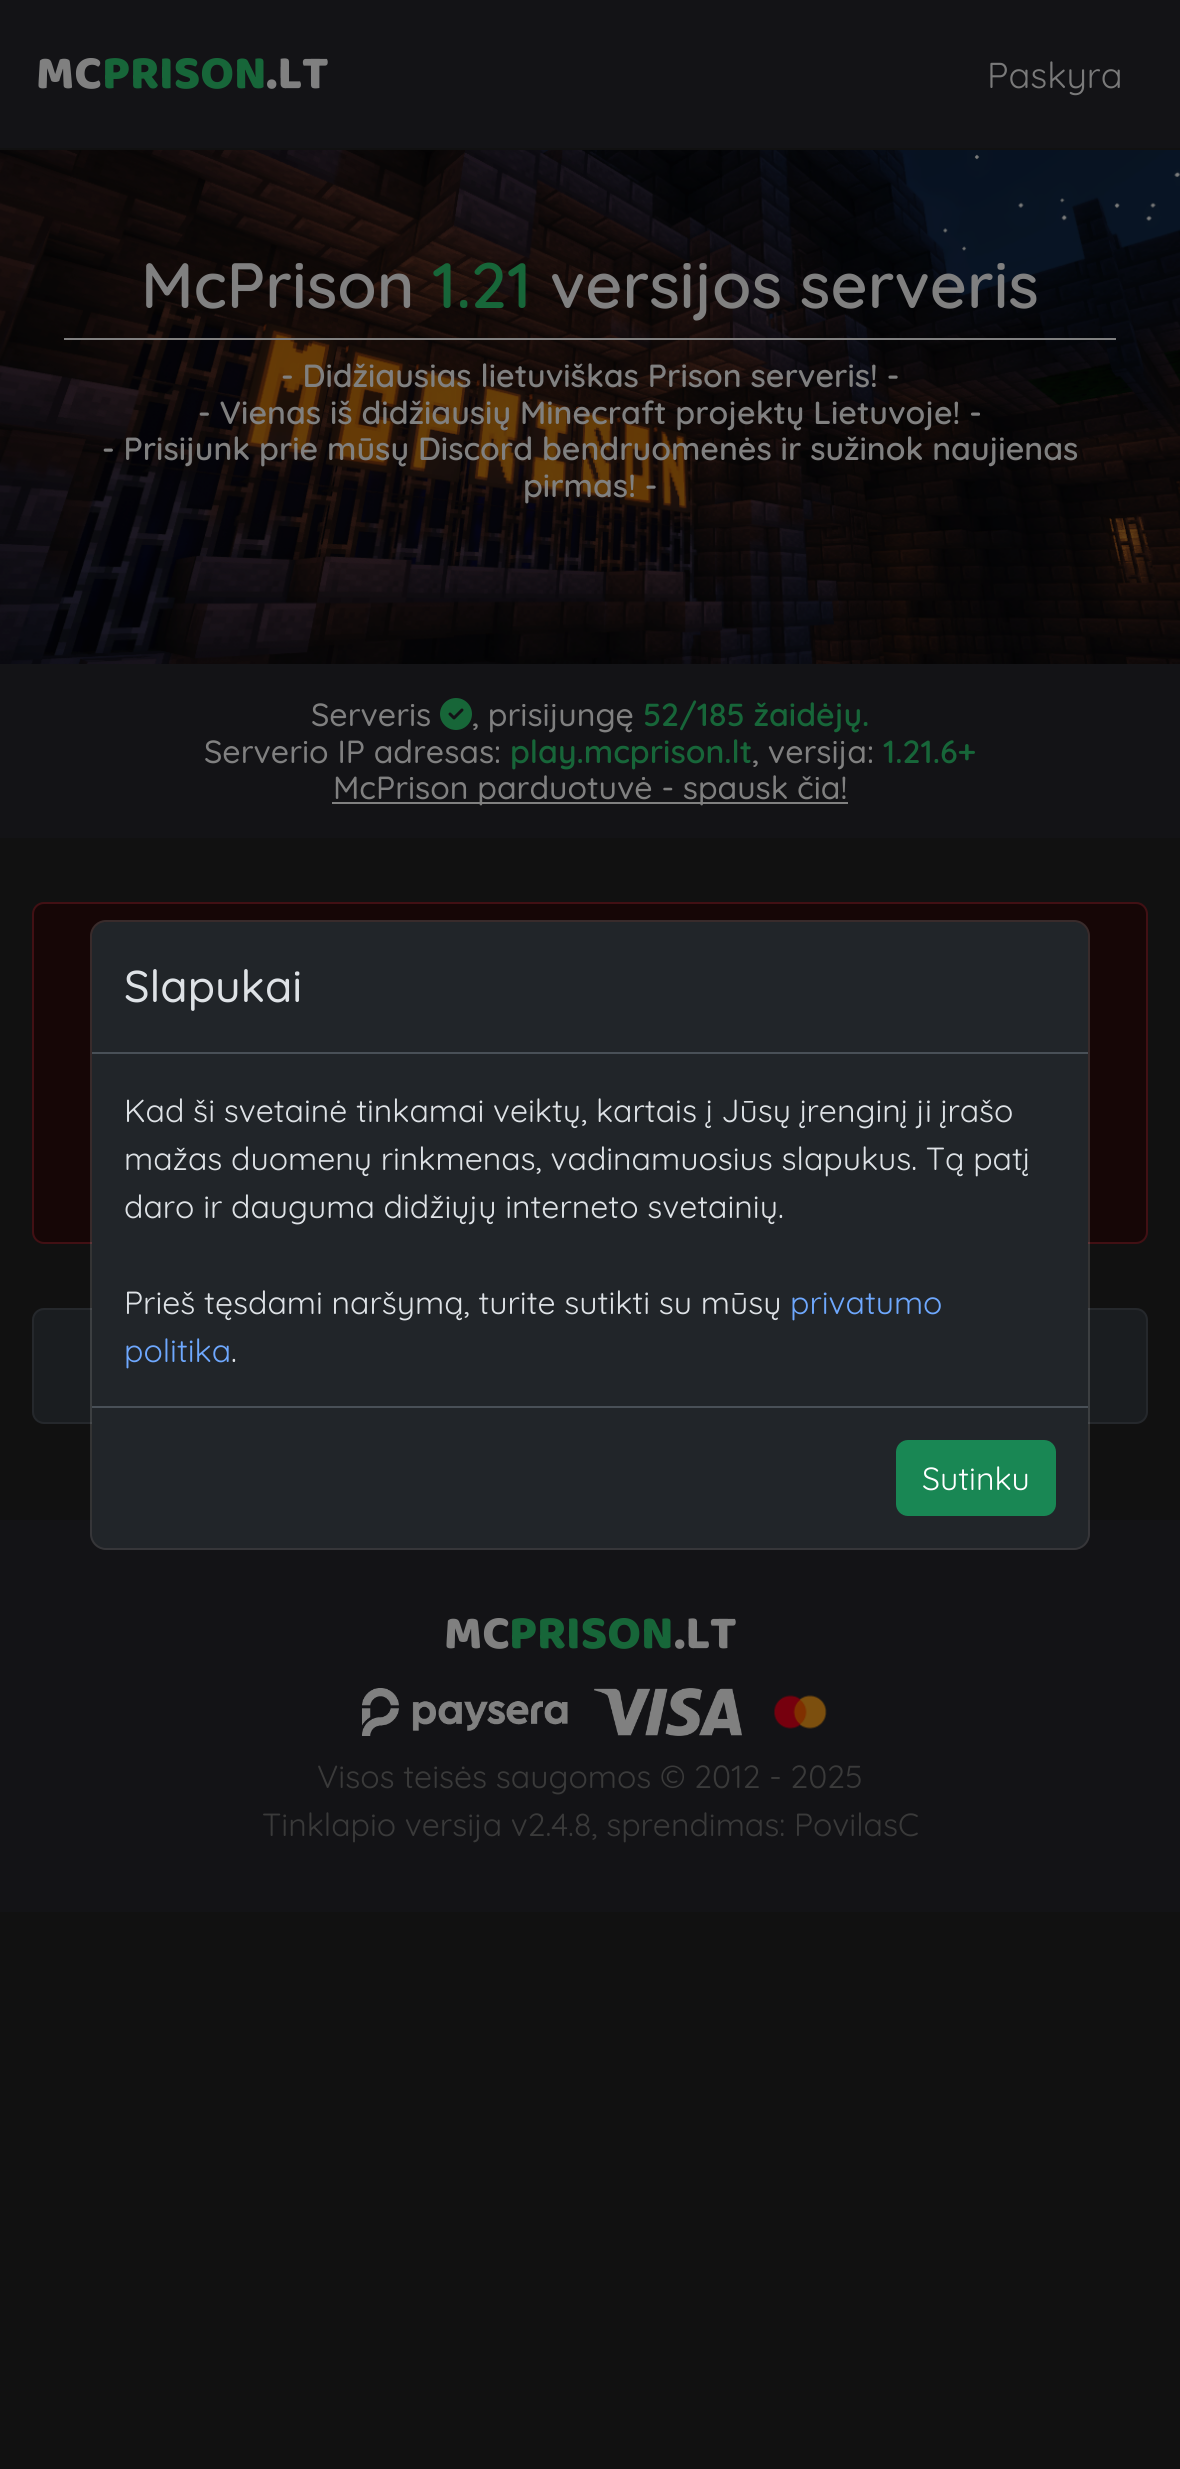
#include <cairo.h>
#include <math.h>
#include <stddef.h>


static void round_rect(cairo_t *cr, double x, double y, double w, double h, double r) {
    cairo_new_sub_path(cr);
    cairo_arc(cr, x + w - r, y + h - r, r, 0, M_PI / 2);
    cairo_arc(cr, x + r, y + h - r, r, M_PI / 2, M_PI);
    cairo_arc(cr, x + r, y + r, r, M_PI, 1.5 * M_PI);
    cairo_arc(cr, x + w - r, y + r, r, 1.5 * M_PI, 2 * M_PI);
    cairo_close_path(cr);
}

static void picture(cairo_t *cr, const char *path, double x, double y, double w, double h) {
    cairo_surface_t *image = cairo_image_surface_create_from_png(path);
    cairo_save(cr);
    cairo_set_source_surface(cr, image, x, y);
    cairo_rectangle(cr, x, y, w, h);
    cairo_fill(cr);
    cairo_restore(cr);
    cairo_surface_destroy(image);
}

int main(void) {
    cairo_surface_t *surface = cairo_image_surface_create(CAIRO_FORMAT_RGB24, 1180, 2469);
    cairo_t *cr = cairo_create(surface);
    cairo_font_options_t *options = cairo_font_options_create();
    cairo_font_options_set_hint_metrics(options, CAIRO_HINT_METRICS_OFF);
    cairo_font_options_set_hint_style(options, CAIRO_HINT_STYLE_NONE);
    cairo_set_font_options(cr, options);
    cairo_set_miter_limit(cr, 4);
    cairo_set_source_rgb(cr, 0.067, 0.067, 0.067);
    cairo_paint(cr);
    cairo_set_source_rgb(cr, 0.075, 0.078, 0.086);
    cairo_rectangle(cr, 0, 0, 1180, 148);
    cairo_fill(cr);
    cairo_select_font_face(cr, "Baloo Thambi 2 ExtraBold", CAIRO_FONT_SLANT_NORMAL, CAIRO_FONT_WEIGHT_NORMAL);
    cairo_set_font_size(cr, 48);
    cairo_set_source_rgb(cr, 0.502, 0.502, 0.502);
    cairo_move_to(cr, 36, 88);
    cairo_show_text(cr, "MC");
    cairo_set_source_rgb(cr, 0.09, 0.4, 0.224);
    cairo_move_to(cr, 102, 88);
    cairo_show_text(cr, "PRISON");
    cairo_set_source_rgb(cr, 0.502, 0.502, 0.502);
    cairo_move_to(cr, 266, 88);
    cairo_show_text(cr, ".LT");
    cairo_select_font_face(cr, "Quicksand", CAIRO_FONT_SLANT_NORMAL, CAIRO_FONT_WEIGHT_NORMAL);
    cairo_set_font_size(cr, 36);
    cairo_set_source_rgb(cr, 0.478, 0.478, 0.478);
    cairo_move_to(cr, 987, 88);
    cairo_show_text(cr, "Paskyra");
    picture(cr, "img1.png", 0, 150, 1180, 514);
    cairo_select_font_face(cr, "Quicksand SemiBold", CAIRO_FONT_SLANT_NORMAL, CAIRO_FONT_WEIGHT_NORMAL);
    cairo_set_font_size(cr, 64);
    cairo_set_source_rgb(cr, 0.502, 0.502, 0.502);
    cairo_move_to(cr, 141, 308);
    cairo_show_text(cr, "McPrison");
    cairo_set_source_rgb(cr, 0.09, 0.4, 0.224);
    cairo_move_to(cr, 432, 308);
    cairo_show_text(cr, "1.21");
    cairo_set_source_rgb(cr, 0.502, 0.502, 0.502);
    cairo_move_to(cr, 550, 308);
    cairo_show_text(cr, "versijos serveris");
    cairo_rectangle(cr, 64, 338, 1052, 2);
    cairo_fill(cr);
    cairo_set_font_size(cr, 32);
    cairo_move_to(cr, 281, 387);
    cairo_show_text(cr, "- Didžiausias lietuviškas Prison serveris! -");
    cairo_move_to(cr, 198, 424);
    cairo_show_text(cr, "- Vienas iš didžiausių Minecraft projektų Lietuvoje! -");
    cairo_move_to(cr, 102, 460);
    cairo_show_text(cr, "- Prisijunk prie mūsų Discord bendruomenės ir sužinok naujienas");
    cairo_move_to(cr, 523, 497);
    cairo_show_text(cr, "pirmas! -");
    cairo_set_source_rgb(cr, 0.075, 0.078, 0.086);
    cairo_rectangle(cr, 0, 664, 1180, 174);
    cairo_fill(cr);
    cairo_select_font_face(cr, "Quicksand Medium", CAIRO_FONT_SLANT_NORMAL, CAIRO_FONT_WEIGHT_NORMAL);
    cairo_set_source_rgb(cr, 0.502, 0.502, 0.502);
    cairo_move_to(cr, 311, 726);
    cairo_show_text(cr, "Serveris");
    picture(cr, "img2.png", 440, 698, 32, 32);
    cairo_move_to(cr, 472, 726);
    cairo_show_text(cr, ", prisijungę");
    cairo_select_font_face(cr, "Quicksand SemiBold", CAIRO_FONT_SLANT_NORMAL, CAIRO_FONT_WEIGHT_NORMAL);
    cairo_set_source_rgb(cr, 0.09, 0.4, 0.224);
    cairo_move_to(cr, 643, 726);
    cairo_show_text(cr, "52/185 žaidėjų.");
    cairo_select_font_face(cr, "Quicksand Medium", CAIRO_FONT_SLANT_NORMAL, CAIRO_FONT_WEIGHT_NORMAL);
    cairo_set_source_rgb(cr, 0.502, 0.502, 0.502);
    cairo_move_to(cr, 204, 763);
    cairo_show_text(cr, "Serverio IP adresas:");
    cairo_select_font_face(cr, "Quicksand SemiBold", CAIRO_FONT_SLANT_NORMAL, CAIRO_FONT_WEIGHT_NORMAL);
    cairo_set_source_rgb(cr, 0.09, 0.4, 0.224);
    cairo_move_to(cr, 510, 763);
    cairo_show_text(cr, "play.mcprison.lt");
    cairo_select_font_face(cr, "Quicksand Medium", CAIRO_FONT_SLANT_NORMAL, CAIRO_FONT_WEIGHT_NORMAL);
    cairo_set_source_rgb(cr, 0.502, 0.502, 0.502);
    cairo_move_to(cr, 752, 763);
    cairo_show_text(cr, ", versija:");
    cairo_select_font_face(cr, "Quicksand SemiBold", CAIRO_FONT_SLANT_NORMAL, CAIRO_FONT_WEIGHT_NORMAL);
    cairo_set_source_rgb(cr, 0.09, 0.4, 0.224);
    cairo_move_to(cr, 883, 763);
    cairo_show_text(cr, "1.21.6+");
    cairo_set_source_rgb(cr, 0.502, 0.502, 0.502);
    cairo_rectangle(cr, 332, 802, 516, 2);
    cairo_fill(cr);
    cairo_select_font_face(cr, "Quicksand Medium", CAIRO_FONT_SLANT_NORMAL, CAIRO_FONT_WEIGHT_NORMAL);
    cairo_move_to(cr, 333, 799);
    cairo_show_text(cr, "McPrison parduotuvė - spausk čia!");
    cairo_set_source_rgb(cr, 0.086, 0.024, 0.027);
    round_rect(cr, 33, 903, 1114, 340, 11);
    cairo_fill_preserve(cr);
    cairo_set_source_rgb(cr, 0.259, 0.063, 0.082);
    cairo_stroke(cr);
    cairo_set_source_rgb(cr, 0.102, 0.114, 0.125);
    round_rect(cr, 33, 1309, 1114, 114, 11);
    cairo_fill_preserve(cr);
    cairo_set_source_rgb(cr, 0.145, 0.157, 0.173);
    cairo_stroke(cr);
    cairo_set_source_rgb(cr, 0.075, 0.078, 0.086);
    cairo_rectangle(cr, 0, 1520, 1180, 392);
    cairo_fill(cr);
    cairo_set_source_rgb(cr, 0.129, 0.145, 0.161);
    round_rect(cr, 92, 922, 996, 626, 14);
    cairo_fill(cr);
    round_rect(cr, 91, 921, 998, 628, 15);
    cairo_set_source_rgba(cr, 1, 1, 1, 0.15);
    cairo_stroke(cr);
    cairo_set_source_rgb(cr, 0.286, 0.314, 0.341);
    cairo_rectangle(cr, 92, 1052, 996, 2);
    cairo_fill(cr);
    cairo_set_font_size(cr, 44.5);
    cairo_set_source_rgb(cr, 0.871, 0.886, 0.902);
    cairo_move_to(cr, 124, 1002);
    cairo_show_text(cr, "Slapukai");
    cairo_select_font_face(cr, "Quicksand", CAIRO_FONT_SLANT_NORMAL, CAIRO_FONT_WEIGHT_NORMAL);
    cairo_set_font_size(cr, 32);
    cairo_move_to(cr, 124, 1122);
    cairo_show_text(cr, "Kad ši svetainė tinkamai veiktų, kartais į Jūsų įrenginį ji įrašo");
    cairo_move_to(cr, 124, 1170);
    cairo_show_text(cr, "mažas duomenų rinkmenas, vadinamuosius slapukus. Tą patį");
    cairo_move_to(cr, 124, 1218);
    cairo_show_text(cr, "daro ir dauguma didžiųjų interneto svetainių.");
    cairo_move_to(cr, 124, 1314);
    cairo_show_text(cr, "Prieš tęsdami naršymą, turite sutikti su mūsų");
    cairo_set_source_rgb(cr, 0.431, 0.659, 0.996);
    cairo_move_to(cr, 790, 1314);
    cairo_show_text(cr, "privatumo");
    cairo_move_to(cr, 124, 1362);
    cairo_show_text(cr, "politika");
    cairo_set_source_rgb(cr, 0.871, 0.886, 0.902);
    cairo_move_to(cr, 231, 1362);
    cairo_show_text(cr, ".");
    cairo_set_source_rgb(cr, 0.286, 0.314, 0.341);
    cairo_rectangle(cr, 92, 1406, 996, 2);
    cairo_fill(cr);
    cairo_set_source_rgb(cr, 0.098, 0.529, 0.329);
    round_rect(cr, 897, 1441, 158, 74, 11);
    cairo_fill_preserve(cr);
    cairo_stroke(cr);
    cairo_set_source_rgb(cr, 1, 1, 1);
    cairo_move_to(cr, 922, 1490);
    cairo_show_text(cr, "Sutinku");
    cairo_select_font_face(cr, "Baloo Thambi 2 ExtraBold", CAIRO_FONT_SLANT_NORMAL, CAIRO_FONT_WEIGHT_NORMAL);
    cairo_set_font_size(cr, 48);
    cairo_set_source_rgb(cr, 0.502, 0.502, 0.502);
    cairo_move_to(cr, 444, 1648);
    cairo_show_text(cr, "MC");
    cairo_set_source_rgb(cr, 0.09, 0.4, 0.224);
    cairo_move_to(cr, 509, 1648);
    cairo_show_text(cr, "PRISON");
    cairo_set_source_rgb(cr, 0.502, 0.502, 0.502);
    cairo_move_to(cr, 674, 1648);
    cairo_show_text(cr, ".LT");
    picture(cr, "img3.png", 362, 1688, 206, 48);
    picture(cr, "img4.png", 594, 1688, 148, 48);
    picture(cr, "img5.png", 774, 1695, 53, 34);
    cairo_select_font_face(cr, "Quicksand", CAIRO_FONT_SLANT_NORMAL, CAIRO_FONT_WEIGHT_NORMAL);
    cairo_set_font_size(cr, 32);
    cairo_set_source_rgb(cr, 0.227, 0.227, 0.227);
    cairo_move_to(cr, 317, 1788);
    cairo_show_text(cr, "Visos teisės saugomos © 2012 - 2025");
    cairo_move_to(cr, 262, 1836);
    cairo_show_text(cr, "Tinklapio versija v2.4.8, sprendimas: PovilasC");
    cairo_surface_write_to_png(surface, "page.png");
    cairo_font_options_destroy(options);
    cairo_destroy(cr);
    cairo_surface_destroy(surface);
    return 0;
}
